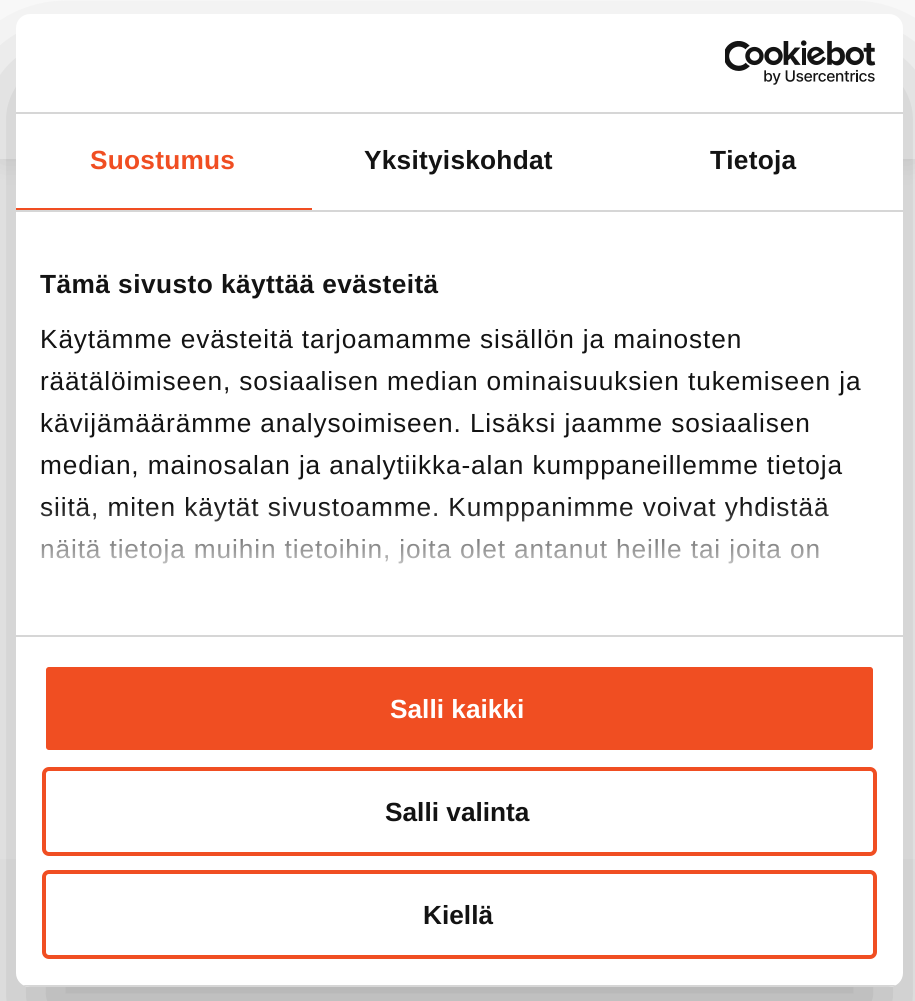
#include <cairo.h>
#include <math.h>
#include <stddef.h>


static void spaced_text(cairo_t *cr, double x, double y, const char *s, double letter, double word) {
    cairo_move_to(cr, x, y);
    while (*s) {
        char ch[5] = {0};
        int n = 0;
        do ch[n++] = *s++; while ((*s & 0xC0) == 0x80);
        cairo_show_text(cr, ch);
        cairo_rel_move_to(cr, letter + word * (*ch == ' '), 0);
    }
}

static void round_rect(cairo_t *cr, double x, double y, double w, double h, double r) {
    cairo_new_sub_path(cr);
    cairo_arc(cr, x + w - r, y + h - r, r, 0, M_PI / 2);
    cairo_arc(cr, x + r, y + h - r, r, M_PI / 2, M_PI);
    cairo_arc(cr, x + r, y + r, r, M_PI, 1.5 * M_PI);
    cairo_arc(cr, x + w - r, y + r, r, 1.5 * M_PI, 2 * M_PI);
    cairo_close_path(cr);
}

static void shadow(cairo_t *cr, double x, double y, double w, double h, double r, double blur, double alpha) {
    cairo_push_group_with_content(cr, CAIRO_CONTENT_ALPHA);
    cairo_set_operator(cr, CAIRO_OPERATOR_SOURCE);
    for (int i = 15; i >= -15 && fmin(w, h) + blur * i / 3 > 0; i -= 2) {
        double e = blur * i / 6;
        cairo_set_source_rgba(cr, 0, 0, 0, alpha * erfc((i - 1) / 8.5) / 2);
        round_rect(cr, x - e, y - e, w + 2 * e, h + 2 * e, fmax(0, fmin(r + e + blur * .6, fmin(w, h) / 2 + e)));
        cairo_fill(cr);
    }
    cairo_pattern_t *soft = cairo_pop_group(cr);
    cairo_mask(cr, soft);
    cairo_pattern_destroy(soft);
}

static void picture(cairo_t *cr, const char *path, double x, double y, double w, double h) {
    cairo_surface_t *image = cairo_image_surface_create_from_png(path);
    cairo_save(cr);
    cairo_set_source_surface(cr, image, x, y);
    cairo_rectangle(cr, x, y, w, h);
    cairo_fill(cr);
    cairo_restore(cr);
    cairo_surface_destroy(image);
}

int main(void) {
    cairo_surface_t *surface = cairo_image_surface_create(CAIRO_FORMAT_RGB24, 915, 1001);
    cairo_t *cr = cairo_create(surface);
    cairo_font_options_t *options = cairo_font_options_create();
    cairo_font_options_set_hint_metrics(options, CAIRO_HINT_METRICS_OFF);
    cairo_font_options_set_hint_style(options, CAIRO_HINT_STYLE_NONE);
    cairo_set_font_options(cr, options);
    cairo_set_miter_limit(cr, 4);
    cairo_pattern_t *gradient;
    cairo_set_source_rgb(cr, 0.965, 0.965, 0.965);
    cairo_paint(cr);
    cairo_set_source_rgb(cr, 0.984, 0.984, 0.984);
    cairo_rectangle(cr, 0, 159, 915, 700);
    cairo_fill(cr);
    cairo_set_source_rgb(cr, 0, 0, 0);
    shadow(cr, 0, 0, 915, 159, 0, 14, 0.1);
    cairo_set_source_rgb(cr, 1, 1, 1);
    cairo_rectangle(cr, 0, 0, 915, 159);
    cairo_fill(cr);
    cairo_set_source_rgb(cr, 0, 0, 0);
    shadow(cr, 16, 70, 887, 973, 14, 59.5, 0.3);
    cairo_set_source_rgb(cr, 1, 1, 1);
    round_rect(cr, 16, 14, 887, 973, 14);
    cairo_fill(cr);
    cairo_set_source_rgb(cr, 0.839, 0.839, 0.839);
    cairo_rectangle(cr, 16, 112, 887, 2);
    cairo_fill(cr);
    picture(cr, "img1.png", 725, 40, 151, 45);
    cairo_rectangle(cr, 16, 210, 887, 2);
    cairo_fill(cr);
    cairo_set_source_rgb(cr, 0.941, 0.306, 0.133);
    cairo_rectangle(cr, 16, 208, 296, 2);
    cairo_fill(cr);
    cairo_select_font_face(cr, "Liberation Sans", CAIRO_FONT_SLANT_NORMAL, CAIRO_FONT_WEIGHT_BOLD);
    cairo_set_font_size(cr, 26.25);
    spaced_text(cr, 90, 169, "Suostumus", 0.25, 0);
    cairo_set_source_rgb(cr, 0.078, 0.078, 0.078);
    spaced_text(cr, 364, 169, "Yksityiskohdat", 0.25, 0);
    spaced_text(cr, 710, 169, "Tietoja", 0.25, 0);
    cairo_set_source_rgb(cr, 0.839, 0.839, 0.839);
    cairo_rectangle(cr, 16, 635, 887, 2);
    cairo_fill(cr);
    cairo_set_source_rgb(cr, 0.078, 0.078, 0.078);
    spaced_text(cr, 40, 293, "Tämä sivusto käyttää evästeitä", 0.45, 0);
    cairo_select_font_face(cr, "Liberation Sans", CAIRO_FONT_SLANT_NORMAL, CAIRO_FONT_WEIGHT_NORMAL);
    spaced_text(cr, 40, 348, "Käytämme evästeitä tarjoamamme sisällön ja mainosten", 0.88, 0);
    spaced_text(cr, 40, 390, "räätälöimiseen, sosiaalisen median ominaisuuksien tukemiseen ja", 0.88, 0);
    spaced_text(cr, 40, 432, "kävijämäärämme analysoimiseen. Lisäksi jaamme sosiaalisen", 0.88, 0);
    spaced_text(cr, 40, 474, "median, mainosalan ja analytiikka-alan kumppaneillemme tietoja", 0.88, 0);
    spaced_text(cr, 40, 516, "siitä, miten käytät sivustoamme. Kumppanimme voivat yhdistää", 0.88, 0);
    spaced_text(cr, 40, 558, "näitä tietoja muihin tietoihin, joita olet antanut heille tai joita on", 0.88, 0);
    gradient = cairo_pattern_create_linear(447, 635, 447, 504);
    cairo_pattern_add_color_stop_rgba(gradient, 0, 1, 1, 1, 1);
    cairo_pattern_add_color_stop_rgba(gradient, 0.5, 1, 1, 1, 0.8);
    cairo_pattern_add_color_stop_rgba(gradient, 1, 1, 1, 1, 0);
    cairo_set_source(cr, gradient);
    cairo_pattern_destroy(gradient);
    cairo_rectangle(cr, 41, 506, 788, 58);
    cairo_fill(cr);
    cairo_save(cr);
    round_rect(cr, 16, 14, 887, 973, 14);
    cairo_clip(cr);
    cairo_set_source_rgb(cr, 0.839, 0.839, 0.839);
    cairo_rectangle(cr, 16, 985, 887, 2);
    cairo_fill(cr);
    cairo_restore(cr);
    cairo_set_source_rgb(cr, 0.941, 0.306, 0.133);
    round_rect(cr, 44, 665, 831, 87, 5);
    cairo_fill_preserve(cr);
    cairo_set_source_rgb(cr, 1, 1, 1);
    cairo_set_line_width(cr, 4);
    cairo_stroke(cr);
    cairo_select_font_face(cr, "Liberation Sans", CAIRO_FONT_SLANT_NORMAL, CAIRO_FONT_WEIGHT_BOLD);
    cairo_move_to(cr, 390, 718);
    cairo_show_text(cr, "Salli kaikki");
    round_rect(cr, 44, 769, 831, 85, 5);
    cairo_set_source_rgb(cr, 0.941, 0.306, 0.133);
    cairo_stroke(cr);
    cairo_set_source_rgb(cr, 0.078, 0.078, 0.078);
    cairo_move_to(cr, 385, 821);
    cairo_show_text(cr, "Salli valinta");
    round_rect(cr, 44, 872, 831, 85, 5);
    cairo_set_source_rgb(cr, 0.941, 0.306, 0.133);
    cairo_stroke(cr);
    cairo_set_source_rgb(cr, 0.078, 0.078, 0.078);
    cairo_move_to(cr, 423, 924);
    cairo_show_text(cr, "Kiellä");
    cairo_surface_write_to_png(surface, "page.png");
    cairo_font_options_destroy(options);
    cairo_destroy(cr);
    cairo_surface_destroy(surface);
    return 0;
}
